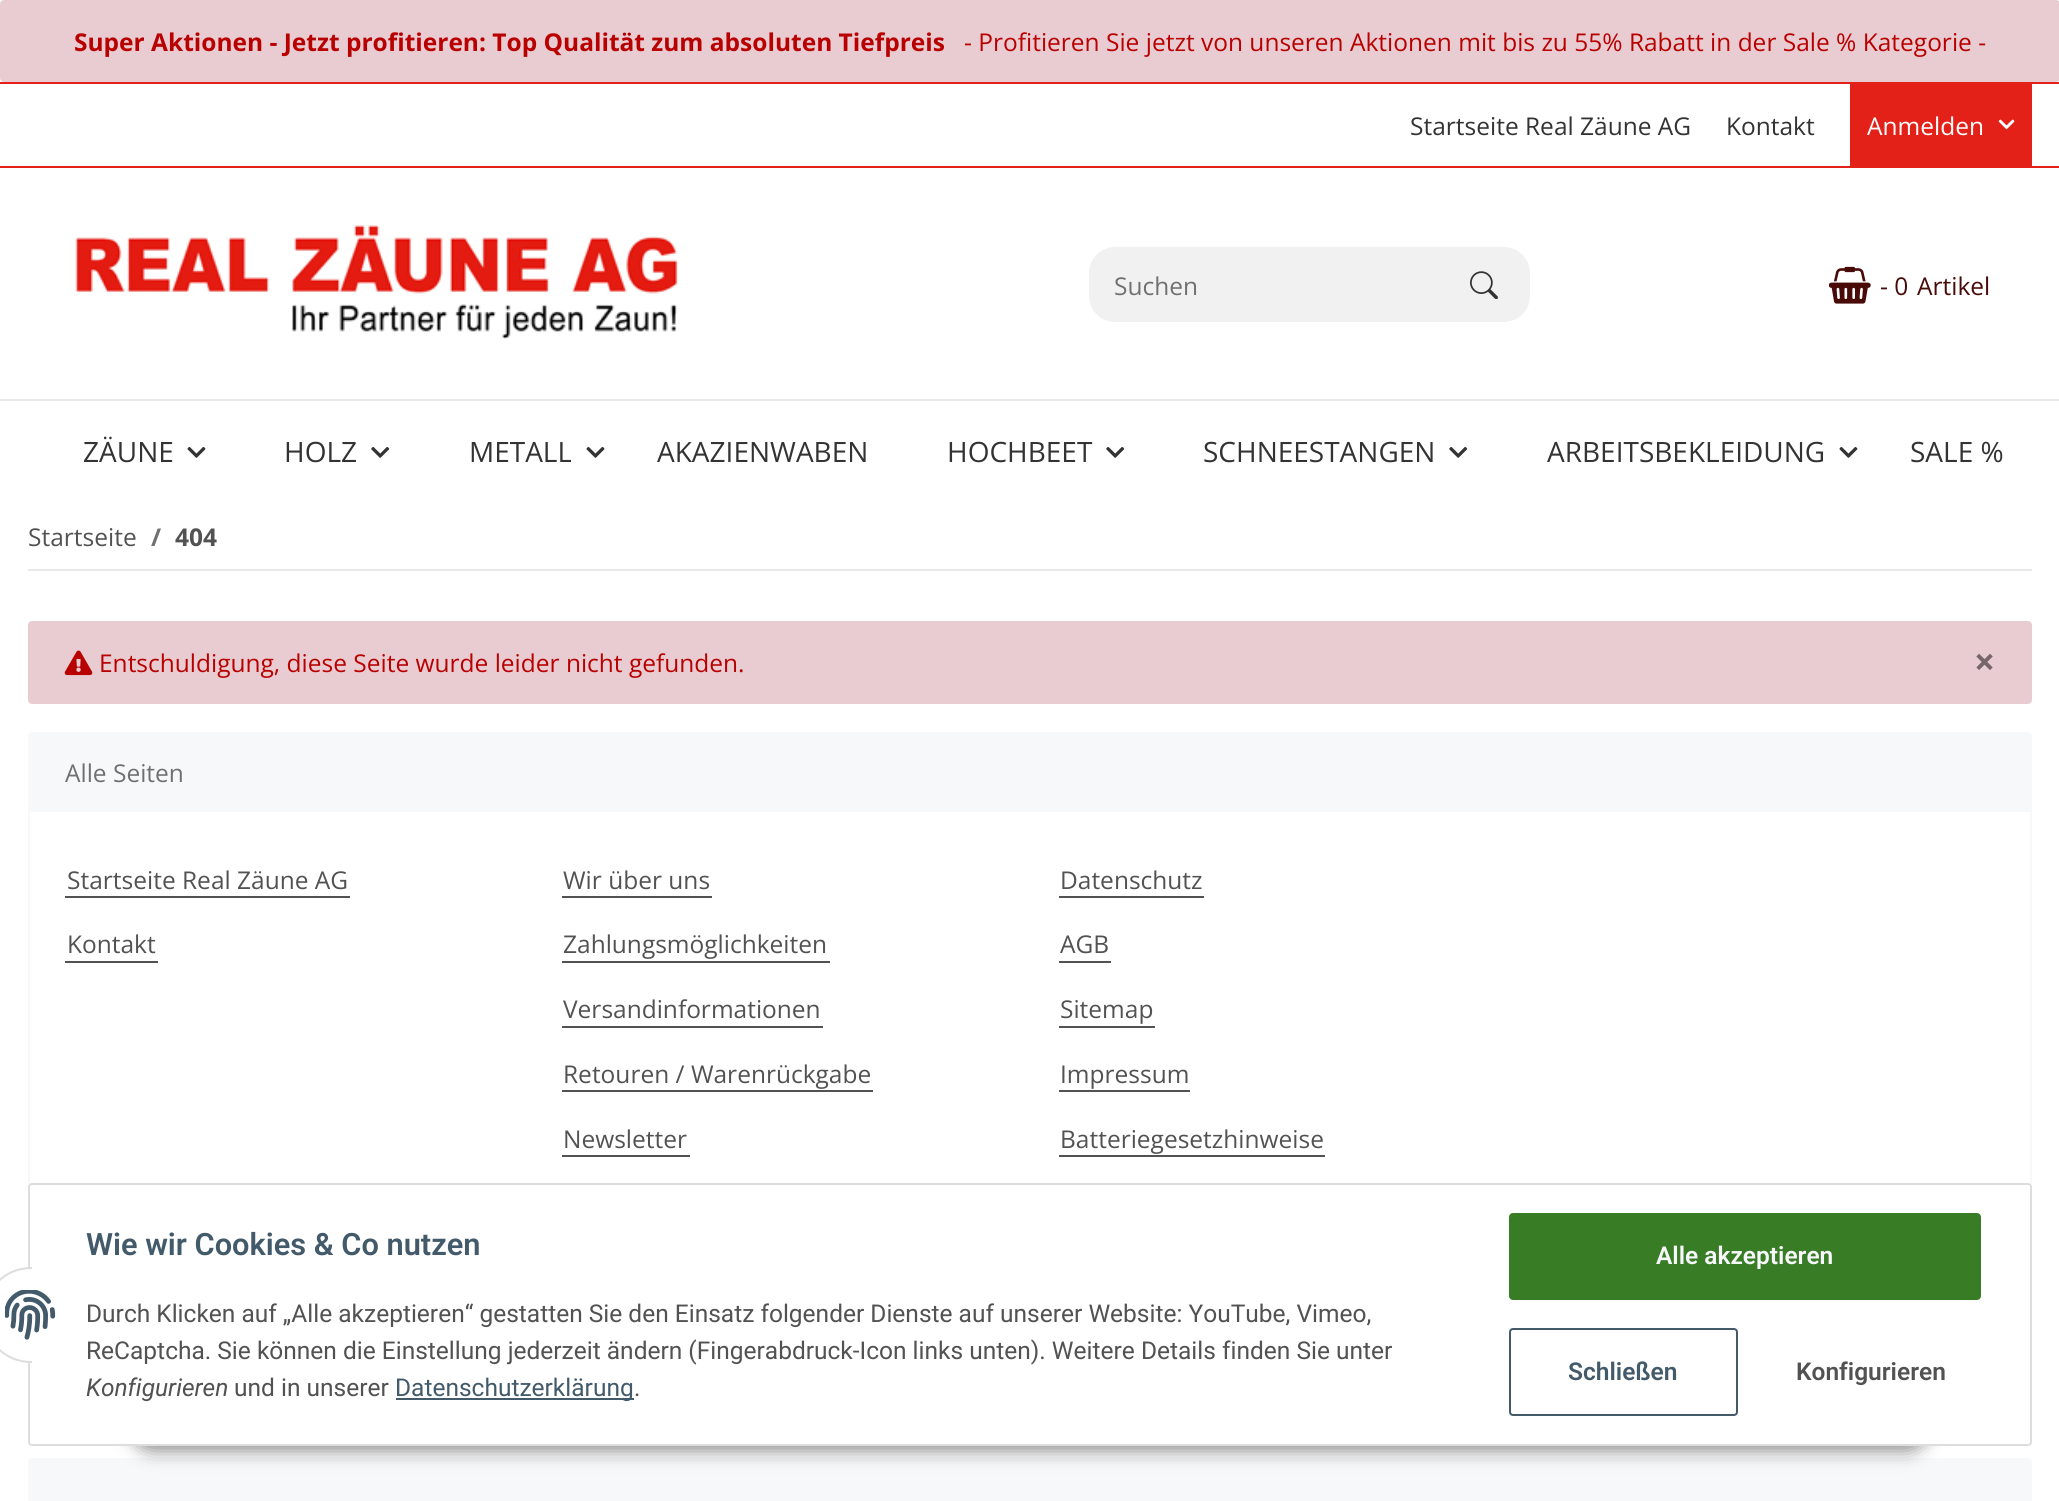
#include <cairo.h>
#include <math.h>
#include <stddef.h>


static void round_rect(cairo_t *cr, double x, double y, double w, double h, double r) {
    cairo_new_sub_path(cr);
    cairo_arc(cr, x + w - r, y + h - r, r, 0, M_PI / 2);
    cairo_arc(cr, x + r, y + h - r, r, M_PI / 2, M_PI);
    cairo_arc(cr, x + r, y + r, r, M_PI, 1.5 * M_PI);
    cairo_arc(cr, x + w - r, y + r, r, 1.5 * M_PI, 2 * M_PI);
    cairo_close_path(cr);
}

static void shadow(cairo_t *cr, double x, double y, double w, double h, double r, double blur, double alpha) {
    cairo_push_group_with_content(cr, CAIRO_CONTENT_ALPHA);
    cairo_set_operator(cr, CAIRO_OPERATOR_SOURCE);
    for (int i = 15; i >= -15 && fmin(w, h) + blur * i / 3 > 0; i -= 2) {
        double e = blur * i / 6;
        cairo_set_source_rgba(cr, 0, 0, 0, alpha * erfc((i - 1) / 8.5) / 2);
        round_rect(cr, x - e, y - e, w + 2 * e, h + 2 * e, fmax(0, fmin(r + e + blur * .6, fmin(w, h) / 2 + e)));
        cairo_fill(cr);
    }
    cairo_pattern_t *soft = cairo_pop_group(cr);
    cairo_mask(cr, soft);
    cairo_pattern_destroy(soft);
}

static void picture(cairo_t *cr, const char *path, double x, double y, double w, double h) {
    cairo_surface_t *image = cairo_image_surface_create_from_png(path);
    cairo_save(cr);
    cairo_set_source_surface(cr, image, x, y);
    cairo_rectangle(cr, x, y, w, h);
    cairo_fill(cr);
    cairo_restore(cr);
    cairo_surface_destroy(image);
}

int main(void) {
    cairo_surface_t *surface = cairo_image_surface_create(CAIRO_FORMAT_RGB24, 2059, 1501);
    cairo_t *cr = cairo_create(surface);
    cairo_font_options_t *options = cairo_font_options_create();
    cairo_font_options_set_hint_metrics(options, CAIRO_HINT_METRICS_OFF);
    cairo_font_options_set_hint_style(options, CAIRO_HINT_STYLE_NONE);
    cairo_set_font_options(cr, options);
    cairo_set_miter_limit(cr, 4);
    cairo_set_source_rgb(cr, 1, 1, 1);
    cairo_paint(cr);
    cairo_set_source_rgb(cr, 0.91, 0.8, 0.824);
    round_rect(cr, 1, 1, 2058, 80, 3);
    cairo_fill_preserve(cr);
    cairo_stroke(cr);
    cairo_select_font_face(cr, "Open Sans", CAIRO_FONT_SLANT_NORMAL, CAIRO_FONT_WEIGHT_BOLD);
    cairo_set_font_size(cr, 24.5);
    cairo_set_source_rgb(cr, 0.725, 0, 0);
    cairo_move_to(cr, 74, 51);
    cairo_show_text(cr, "Super Aktionen - Jetzt profitieren: Top Qualität zum absoluten Tiefpreis");
    cairo_select_font_face(cr, "Open Sans", CAIRO_FONT_SLANT_NORMAL, CAIRO_FONT_WEIGHT_NORMAL);
    cairo_move_to(cr, 964, 51);
    cairo_show_text(cr, "- Profitieren Sie jetzt von unseren Aktionen mit bis zu 55% Rabatt in der Sale % Kategorie -");
    cairo_set_source_rgb(cr, 0.89, 0.129, 0.094);
    cairo_rectangle(cr, 0, 82, 2059, 2);
    cairo_fill(cr);
    cairo_rectangle(cr, 0, 166, 2059, 2);
    cairo_fill(cr);
    cairo_set_source_rgb(cr, 0.2, 0.2, 0.2);
    cairo_move_to(cr, 1410, 135);
    cairo_show_text(cr, "Startseite Real Zäune AG");
    cairo_move_to(cr, 1726, 135);
    cairo_show_text(cr, "Kontakt");
    cairo_set_source_rgb(cr, 0.89, 0.129, 0.094);
    cairo_rectangle(cr, 1850, 84, 182, 82);
    cairo_fill(cr);
    cairo_set_source_rgb(cr, 1, 1, 1);
    cairo_move_to(cr, 1867, 135);
    cairo_show_text(cr, "Anmelden");
    picture(cr, "img1.png", 1998, 119, 17, 11);
    picture(cr, "img2.png", 75, 225, 603, 115);
    cairo_set_source_rgb(cr, 0.945, 0.945, 0.945);
    round_rect(cr, 1089, 247, 441, 75, 26);
    cairo_fill(cr);
    cairo_set_source_rgb(cr, 0.439, 0.439, 0.439);
    cairo_move_to(cr, 1114, 295);
    cairo_show_text(cr, "Suchen");
    picture(cr, "img3.png", 1470, 271, 28, 28);
    picture(cr, "img4.png", 1829, 266, 42, 38);
    cairo_set_source_rgb(cr, 0.286, 0.043, 0.031);
    cairo_move_to(cr, 1880, 295);
    cairo_show_text(cr, "- 0");
    cairo_move_to(cr, 1917, 295);
    cairo_show_text(cr, "Artikel");
    cairo_set_source_rgb(cr, 0.914, 0.914, 0.914);
    cairo_rectangle(cr, 0, 399, 2059, 2);
    cairo_fill(cr);
    cairo_set_font_size(cr, 28);
    cairo_set_source_rgb(cr, 0.2, 0.2, 0.2);
    cairo_move_to(cr, 83, 462);
    cairo_show_text(cr, "ZÄUNE");
    picture(cr, "img5.png", 187, 447, 19, 11);
    cairo_move_to(cr, 284, 462);
    cairo_show_text(cr, "HOLZ");
    picture(cr, "img6.png", 371, 447, 19, 11);
    cairo_move_to(cr, 469, 462);
    cairo_show_text(cr, "METALL");
    picture(cr, "img5.png", 586, 447, 19, 11);
    cairo_move_to(cr, 657, 462);
    cairo_show_text(cr, "AKAZIENWABEN");
    cairo_move_to(cr, 947, 462);
    cairo_show_text(cr, "HOCHBEET");
    picture(cr, "img6.png", 1106, 447, 19, 11);
    cairo_move_to(cr, 1203, 462);
    cairo_show_text(cr, "SCHNEESTANGEN");
    picture(cr, "img6.png", 1449, 447, 19, 11);
    cairo_move_to(cr, 1547, 462);
    cairo_show_text(cr, "ARBEITSBEKLEIDUNG");
    picture(cr, "img5.png", 1839, 447, 19, 11);
    cairo_move_to(cr, 1910, 462);
    cairo_show_text(cr, "SALE %");
    cairo_set_font_size(cr, 24.5);
    cairo_set_source_rgb(cr, 0.322, 0.322, 0.322);
    cairo_move_to(cr, 28, 546);
    cairo_show_text(cr, "Startseite");
    cairo_select_font_face(cr, "Open Sans", CAIRO_FONT_SLANT_NORMAL, CAIRO_FONT_WEIGHT_BOLD);
    cairo_set_source_rgb(cr, 0.439, 0.439, 0.439);
    cairo_move_to(cr, 151, 546);
    cairo_show_text(cr, "/");
    cairo_set_source_rgb(cr, 0.322, 0.322, 0.322);
    cairo_move_to(cr, 175, 546);
    cairo_show_text(cr, "404");
    cairo_set_source_rgb(cr, 0.914, 0.914, 0.914);
    cairo_rectangle(cr, 28, 569, 2004, 2);
    cairo_fill(cr);
    cairo_set_source_rgb(cr, 0.91, 0.8, 0.824);
    round_rect(cr, 29, 622, 2002, 81, 3);
    cairo_fill_preserve(cr);
    cairo_stroke(cr);
    picture(cr, "img7.png", 64, 650, 29, 26);
    cairo_select_font_face(cr, "Open Sans", CAIRO_FONT_SLANT_NORMAL, CAIRO_FONT_WEIGHT_NORMAL);
    cairo_set_source_rgb(cr, 0.725, 0, 0);
    cairo_move_to(cr, 99, 672);
    cairo_show_text(cr, "Entschuldigung, diese Seite wurde leider nicht gefunden.");
    cairo_select_font_face(cr, "Open Sans", CAIRO_FONT_SLANT_NORMAL, CAIRO_FONT_WEIGHT_BOLD);
    cairo_set_font_size(cr, 37);
    cairo_set_source_rgb(cr, 0.455, 0.4, 0.412);
    cairo_move_to(cr, 1974, 675);
    cairo_show_text(cr, "×");
    round_rect(cr, 29, 733, 2002, 668, 3);
    cairo_set_source_rgb(cr, 0.961, 0.969, 0.98);
    cairo_stroke(cr);
    cairo_new_path(cr);
    cairo_move_to(cr, 32, 733);
    cairo_line_to(cr, 2028, 733);
    cairo_curve_to(cr, 2029, 733, 2030, 734, 2030, 735);
    cairo_line_to(cr, 2030, 812);
    cairo_line_to(cr, 30, 812);
    cairo_line_to(cr, 30, 735);
    cairo_curve_to(cr, 30, 734, 31, 733, 32, 733);
    cairo_close_path(cr);
    cairo_fill(cr);
    cairo_select_font_face(cr, "Open Sans", CAIRO_FONT_SLANT_NORMAL, CAIRO_FONT_WEIGHT_NORMAL);
    cairo_set_font_size(cr, 24.5);
    cairo_set_source_rgb(cr, 0.439, 0.439, 0.439);
    cairo_move_to(cr, 65, 782);
    cairo_show_text(cr, "Alle Seiten");
    cairo_set_source_rgb(cr, 0.322, 0.322, 0.322);
    cairo_move_to(cr, 67, 889);
    cairo_show_text(cr, "Startseite Real Zäune AG");
    cairo_rectangle(cr, 65, 896, 285, 2);
    cairo_fill(cr);
    cairo_move_to(cr, 67, 953);
    cairo_show_text(cr, "Kontakt");
    cairo_rectangle(cr, 65, 961, 93, 2);
    cairo_fill(cr);
    cairo_move_to(cr, 563, 889);
    cairo_show_text(cr, "Wir über uns");
    cairo_rectangle(cr, 562, 896, 150, 2);
    cairo_fill(cr);
    cairo_move_to(cr, 563, 953);
    cairo_show_text(cr, "Zahlungsmöglichkeiten");
    cairo_rectangle(cr, 562, 961, 268, 2);
    cairo_fill(cr);
    cairo_move_to(cr, 563, 1018);
    cairo_show_text(cr, "Versandinformationen");
    cairo_rectangle(cr, 562, 1026, 261, 2);
    cairo_fill(cr);
    cairo_move_to(cr, 563, 1083);
    cairo_show_text(cr, "Retouren / Warenrückgabe");
    cairo_rectangle(cr, 562, 1090, 311, 2);
    cairo_fill(cr);
    cairo_move_to(cr, 563, 1148);
    cairo_show_text(cr, "Newsletter");
    cairo_rectangle(cr, 562, 1155, 128, 2);
    cairo_fill(cr);
    cairo_move_to(cr, 1060, 889);
    cairo_show_text(cr, "Datenschutz");
    cairo_rectangle(cr, 1059, 896, 145, 2);
    cairo_fill(cr);
    cairo_move_to(cr, 1060, 953);
    cairo_show_text(cr, "AGB");
    cairo_rectangle(cr, 1059, 961, 52, 2);
    cairo_fill(cr);
    cairo_move_to(cr, 1060, 1018);
    cairo_show_text(cr, "Sitemap");
    cairo_rectangle(cr, 1059, 1026, 96, 2);
    cairo_fill(cr);
    cairo_move_to(cr, 1060, 1083);
    cairo_show_text(cr, "Impressum");
    cairo_rectangle(cr, 1059, 1090, 131, 2);
    cairo_fill(cr);
    cairo_move_to(cr, 1060, 1148);
    cairo_show_text(cr, "Batteriegesetzhinweise");
    cairo_rectangle(cr, 1059, 1155, 266, 2);
    cairo_fill(cr);
    round_rect(cr, 29, 1459, 2002, 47, 3);
    cairo_set_source_rgb(cr, 0.961, 0.969, 0.98);
    cairo_stroke(cr);
    cairo_new_path(cr);
    cairo_move_to(cr, 32, 1460);
    cairo_line_to(cr, 2028, 1460);
    cairo_curve_to(cr, 2029, 1460, 2030, 1461, 2030, 1462);
    cairo_line_to(cr, 2030, 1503);
    cairo_line_to(cr, 30, 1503);
    cairo_line_to(cr, 30, 1462);
    cairo_curve_to(cr, 30, 1461, 31, 1460, 32, 1460);
    cairo_close_path(cr);
    cairo_fill(cr);
    cairo_set_source_rgb(cr, 0, 0, 0);
    shadow(cr, 130, 1395, 1800, 56, 28, 9, 0.45);
    cairo_set_source_rgb(cr, 1, 1, 1);
    round_rect(cr, 29, 1184, 2002, 261, 3);
    cairo_fill_preserve(cr);
    cairo_set_source_rgb(cr, 0.867, 0.867, 0.867);
    cairo_stroke(cr);
    cairo_set_source_rgb(cr, 1, 1, 1);
    cairo_arc(cr, 31, 1315, 47, 0, 2 * M_PI);
    cairo_fill_preserve(cr);
    cairo_set_source_rgb(cr, 0.867, 0.867, 0.867);
    cairo_stroke(cr);
    cairo_set_source_rgb(cr, 1, 1, 1);
    cairo_rectangle(cr, 32, 1267, 47, 96);
    cairo_fill(cr);
    picture(cr, "img8.png", 5, 1290, 51, 50);
    cairo_select_font_face(cr, "Roboto SemiBold", CAIRO_FONT_SLANT_NORMAL, CAIRO_FONT_WEIGHT_NORMAL);
    cairo_set_font_size(cr, 30.75);
    cairo_set_source_rgb(cr, 0.263, 0.353, 0.42);
    cairo_move_to(cr, 86, 1255);
    cairo_show_text(cr, "Wie wir Cookies & Co nutzen");
    cairo_select_font_face(cr, "Roboto", CAIRO_FONT_SLANT_NORMAL, CAIRO_FONT_WEIGHT_NORMAL);
    cairo_set_font_size(cr, 24.5);
    cairo_set_source_rgb(cr, 0.322, 0.322, 0.322);
    cairo_move_to(cr, 86, 1322);
    cairo_show_text(cr, "Durch Klicken auf „Alle akzeptieren“ gestatten Sie den Einsatz folgender Dienste auf unserer Website: YouTube, Vimeo,");
    cairo_move_to(cr, 86, 1359);
    cairo_show_text(cr, "ReCaptcha. Sie können die Einstellung jederzeit ändern (Fingerabdruck-Icon links unten). Weitere Details finden Sie unter");
    cairo_select_font_face(cr, "Roboto", CAIRO_FONT_SLANT_ITALIC, CAIRO_FONT_WEIGHT_NORMAL);
    cairo_move_to(cr, 86, 1396);
    cairo_show_text(cr, "Konfigurieren");
    cairo_select_font_face(cr, "Roboto", CAIRO_FONT_SLANT_NORMAL, CAIRO_FONT_WEIGHT_NORMAL);
    cairo_move_to(cr, 234, 1396);
    cairo_show_text(cr, "und in unserer");
    cairo_set_source_rgb(cr, 0.263, 0.353, 0.42);
    cairo_rectangle(cr, 396, 1398, 238, 2);
    cairo_fill(cr);
    cairo_move_to(cr, 395, 1396);
    cairo_show_text(cr, "Datenschutzerklärung");
    cairo_set_source_rgb(cr, 0.322, 0.322, 0.322);
    cairo_move_to(cr, 634, 1396);
    cairo_show_text(cr, ".");
    cairo_set_source_rgb(cr, 0.224, 0.486, 0.149);
    round_rect(cr, 1510, 1214, 470, 85, 3);
    cairo_fill_preserve(cr);
    cairo_stroke(cr);
    cairo_select_font_face(cr, "Roboto SemiBold", CAIRO_FONT_SLANT_NORMAL, CAIRO_FONT_WEIGHT_NORMAL);
    cairo_set_source_rgb(cr, 0.961, 0.969, 0.98);
    cairo_move_to(cr, 1656, 1264);
    cairo_show_text(cr, "Alle akzeptieren");
    round_rect(cr, 1510, 1329, 227, 86, 3);
    cairo_set_source_rgb(cr, 0.263, 0.353, 0.42);
    cairo_stroke(cr);
    cairo_move_to(cr, 1568, 1380);
    cairo_show_text(cr, "Schließen");
    cairo_set_source_rgb(cr, 0.322, 0.322, 0.322);
    cairo_move_to(cr, 1796, 1380);
    cairo_show_text(cr, "Konfigurieren");
    cairo_surface_write_to_png(surface, "page.png");
    cairo_font_options_destroy(options);
    cairo_destroy(cr);
    cairo_surface_destroy(surface);
    return 0;
}
